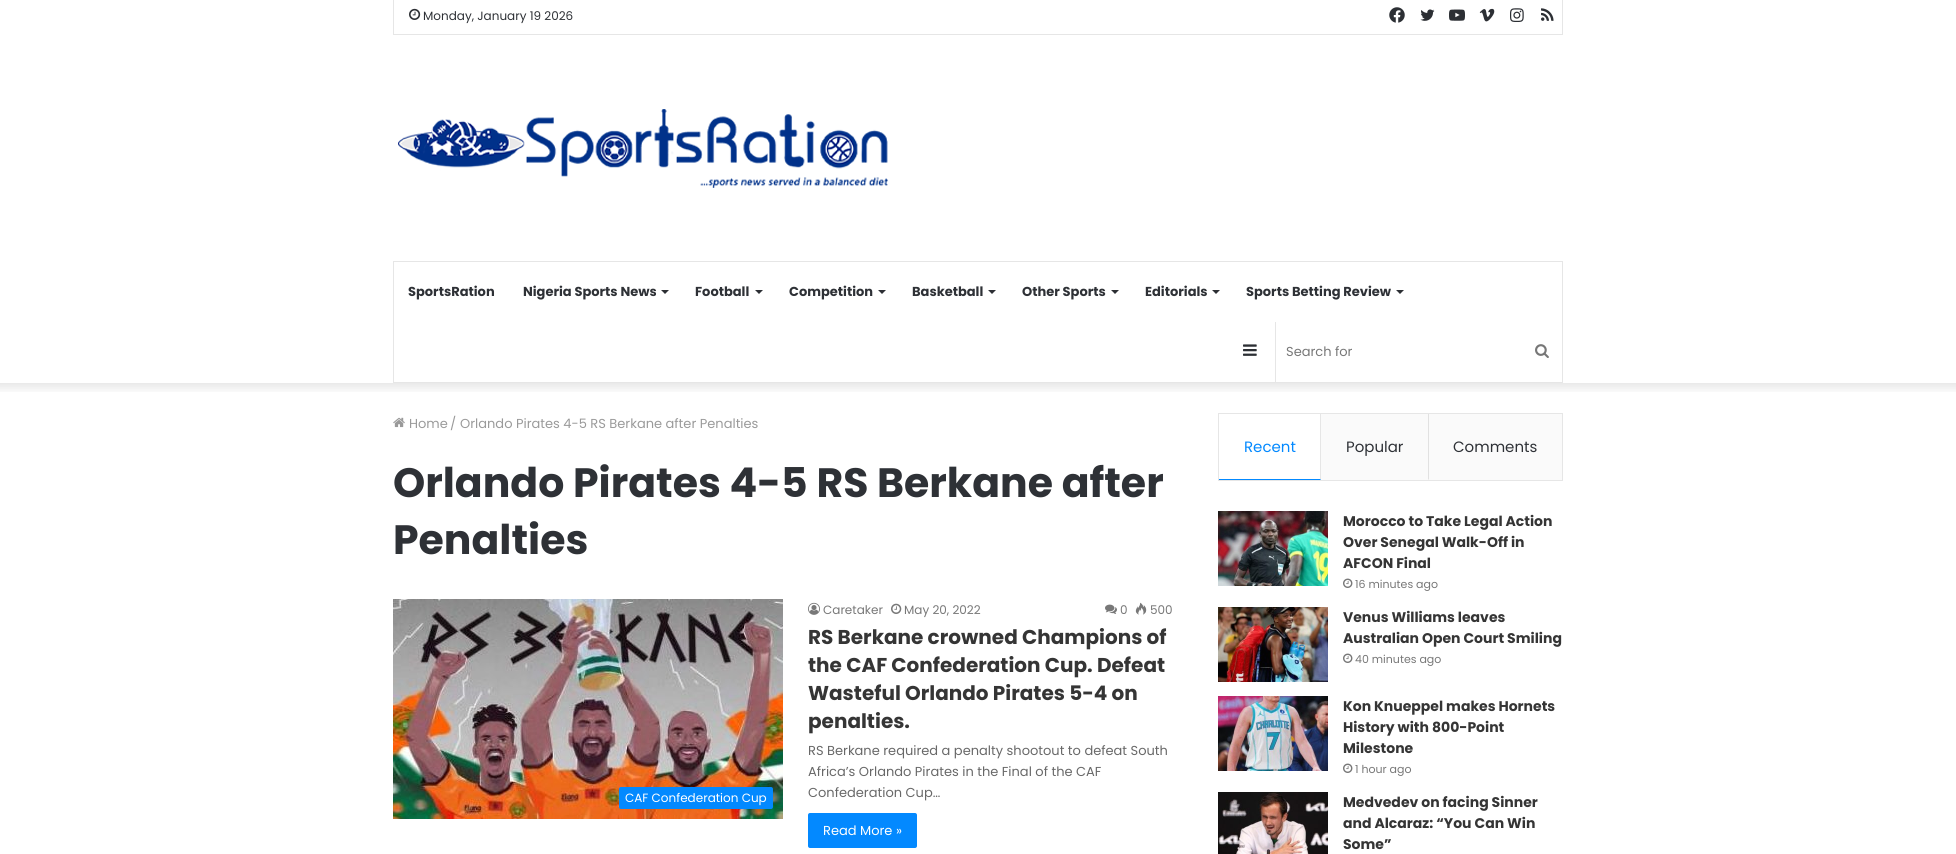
#include <cairo.h>
#include <math.h>
#include <stddef.h>


static void round_rect(cairo_t *cr, double x, double y, double w, double h, double r) {
    cairo_new_sub_path(cr);
    cairo_arc(cr, x + w - r, y + h - r, r, 0, M_PI / 2);
    cairo_arc(cr, x + r, y + h - r, r, M_PI / 2, M_PI);
    cairo_arc(cr, x + r, y + r, r, M_PI, 1.5 * M_PI);
    cairo_arc(cr, x + w - r, y + r, r, 1.5 * M_PI, 2 * M_PI);
    cairo_close_path(cr);
}

static void shadow(cairo_t *cr, double x, double y, double w, double h, double r, double blur, double alpha) {
    cairo_push_group_with_content(cr, CAIRO_CONTENT_ALPHA);
    cairo_set_operator(cr, CAIRO_OPERATOR_SOURCE);
    for (int i = 15; i >= -15 && fmin(w, h) + blur * i / 3 > 0; i -= 2) {
        double e = blur * i / 6;
        cairo_set_source_rgba(cr, 0, 0, 0, alpha * erfc((i - 1) / 8.5) / 2);
        round_rect(cr, x - e, y - e, w + 2 * e, h + 2 * e, fmax(0, fmin(r + e + blur * .6, fmin(w, h) / 2 + e)));
        cairo_fill(cr);
    }
    cairo_pattern_t *soft = cairo_pop_group(cr);
    cairo_mask(cr, soft);
    cairo_pattern_destroy(soft);
}

static void picture(cairo_t *cr, const char *path, double x, double y, double w, double h) {
    cairo_surface_t *image = cairo_image_surface_create_from_png(path);
    cairo_save(cr);
    cairo_set_source_surface(cr, image, x, y);
    cairo_rectangle(cr, x, y, w, h);
    cairo_fill(cr);
    cairo_restore(cr);
    cairo_surface_destroy(image);
}

int main(void) {
    cairo_surface_t *surface = cairo_image_surface_create(CAIRO_FORMAT_RGB24, 1956, 854);
    cairo_t *cr = cairo_create(surface);
    cairo_font_options_t *options = cairo_font_options_create();
    cairo_font_options_set_hint_metrics(options, CAIRO_HINT_METRICS_OFF);
    cairo_font_options_set_hint_style(options, CAIRO_HINT_STYLE_NONE);
    cairo_set_font_options(cr, options);
    cairo_set_miter_limit(cr, 4);
    cairo_set_source_rgb(cr, 1, 1, 1);
    cairo_paint(cr);
    cairo_save(cr);
    cairo_rectangle(cr, 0, 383, 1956, 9);
    cairo_clip(cr);
    cairo_set_source_rgb(cr, 0, 0, 0);
    shadow(cr, -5, -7, 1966, 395, 0, 5, 0.1);
    cairo_restore(cr);
    cairo_set_source_rgb(cr, 0.902, 0.902, 0.902);
    cairo_new_path(cr);
    cairo_move_to(cr, 1563, -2);
    cairo_line_to(cr, 1563, 35);
    cairo_line_to(cr, 1562, 34);
    cairo_line_to(cr, 1562, -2);
    cairo_close_path(cr);
    cairo_fill(cr);
    cairo_set_source_rgba(cr, 0, 0, 0, 0.1);
    cairo_new_path(cr);
    cairo_move_to(cr, 1563, 35);
    cairo_line_to(cr, 393, 35);
    cairo_line_to(cr, 394, 34);
    cairo_line_to(cr, 1562, 34);
    cairo_close_path(cr);
    cairo_fill(cr);
    cairo_new_path(cr);
    cairo_move_to(cr, 393, 35);
    cairo_line_to(cr, 393, -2);
    cairo_line_to(cr, 394, -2);
    cairo_line_to(cr, 394, 34);
    cairo_close_path(cr);
    cairo_fill(cr);
    picture(cr, "img1.png", 409, 8, 12, 12);
    cairo_select_font_face(cr, "Poppins", CAIRO_FONT_SLANT_NORMAL, CAIRO_FONT_WEIGHT_NORMAL);
    cairo_set_font_size(cr, 12);
    cairo_set_source_rgb(cr, 0.18, 0.192, 0.212);
    cairo_move_to(cr, 423, 20);
    cairo_show_text(cr, "Monday, January 19 2026");
    picture(cr, "img2.png", 1389, 7, 16, 16);
    picture(cr, "img3.png", 1420, 9, 15, 12);
    picture(cr, "img4.png", 1449, 9, 16, 12);
    picture(cr, "img5.png", 1479, 8, 16, 14);
    picture(cr, "img6.png", 1510, 8, 14, 14);
    picture(cr, "img7.png", 1541, 8, 13, 13);
    picture(cr, "img8.png", 398, 109, 490, 79);
    cairo_rectangle(cr, 393.5, 261.5, 1169, 121);
    cairo_set_source_rgb(cr, 0.902, 0.902, 0.902);
    cairo_set_line_width(cr, 1);
    cairo_stroke(cr);
    cairo_select_font_face(cr, "Poppins", CAIRO_FONT_SLANT_NORMAL, CAIRO_FONT_WEIGHT_BOLD);
    cairo_set_font_size(cr, 13);
    cairo_set_source_rgb(cr, 0.18, 0.192, 0.212);
    cairo_move_to(cr, 408, 296);
    cairo_show_text(cr, "SportsRation");
    cairo_move_to(cr, 523, 296);
    cairo_show_text(cr, "Nigeria Sports News");
    cairo_set_source_rgb(cr, 0.173, 0.184, 0.204);
    cairo_new_path(cr);
    cairo_move_to(cr, 661, 290);
    cairo_line_to(cr, 669, 290);
    cairo_line_to(cr, 665, 294);
    cairo_close_path(cr);
    cairo_fill(cr);
    cairo_set_source_rgb(cr, 0.18, 0.192, 0.212);
    cairo_move_to(cr, 695, 296);
    cairo_show_text(cr, "Football");
    cairo_set_source_rgb(cr, 0.173, 0.184, 0.204);
    cairo_new_path(cr);
    cairo_move_to(cr, 755, 290);
    cairo_line_to(cr, 763, 290);
    cairo_line_to(cr, 759, 294);
    cairo_close_path(cr);
    cairo_fill(cr);
    cairo_set_source_rgb(cr, 0.18, 0.192, 0.212);
    cairo_move_to(cr, 789, 296);
    cairo_show_text(cr, "Competition");
    cairo_set_source_rgb(cr, 0.173, 0.184, 0.204);
    cairo_new_path(cr);
    cairo_move_to(cr, 878, 290);
    cairo_line_to(cr, 886, 290);
    cairo_line_to(cr, 882, 294);
    cairo_close_path(cr);
    cairo_fill(cr);
    cairo_set_source_rgb(cr, 0.18, 0.192, 0.212);
    cairo_move_to(cr, 912, 296);
    cairo_show_text(cr, "Basketball");
    cairo_set_source_rgb(cr, 0.173, 0.184, 0.204);
    cairo_new_path(cr);
    cairo_move_to(cr, 988, 290);
    cairo_line_to(cr, 996, 290);
    cairo_line_to(cr, 992, 294);
    cairo_close_path(cr);
    cairo_fill(cr);
    cairo_set_source_rgb(cr, 0.18, 0.192, 0.212);
    cairo_move_to(cr, 1022, 296);
    cairo_show_text(cr, "Other Sports");
    cairo_set_source_rgb(cr, 0.173, 0.184, 0.204);
    cairo_new_path(cr);
    cairo_move_to(cr, 1111, 290);
    cairo_line_to(cr, 1119, 290);
    cairo_line_to(cr, 1115, 294);
    cairo_close_path(cr);
    cairo_fill(cr);
    cairo_set_source_rgb(cr, 0.18, 0.192, 0.212);
    cairo_move_to(cr, 1145, 296);
    cairo_show_text(cr, "Editorials");
    cairo_set_source_rgb(cr, 0.173, 0.184, 0.204);
    cairo_new_path(cr);
    cairo_move_to(cr, 1212, 290);
    cairo_line_to(cr, 1220, 290);
    cairo_line_to(cr, 1216, 294);
    cairo_close_path(cr);
    cairo_fill(cr);
    cairo_set_source_rgb(cr, 0.18, 0.192, 0.212);
    cairo_move_to(cr, 1246, 296);
    cairo_show_text(cr, "Sports Betting Review");
    cairo_set_source_rgb(cr, 0.173, 0.184, 0.204);
    cairo_new_path(cr);
    cairo_move_to(cr, 1396, 290);
    cairo_line_to(cr, 1404, 290);
    cairo_line_to(cr, 1400, 294);
    cairo_close_path(cr);
    cairo_fill(cr);
    picture(cr, "img9.png", 1243, 344, 14, 12);
    cairo_set_source_rgb(cr, 0.902, 0.902, 0.902);
    cairo_rectangle(cr, 1275, 322, 1, 60);
    cairo_fill(cr);
    cairo_select_font_face(cr, "Poppins", CAIRO_FONT_SLANT_NORMAL, CAIRO_FONT_WEIGHT_NORMAL);
    cairo_set_source_rgb(cr, 0.467, 0.467, 0.467);
    cairo_move_to(cr, 1286, 356);
    cairo_show_text(cr, "Search for");
    picture(cr, "img10.png", 1535, 344, 14, 14);
    picture(cr, "img11.png", 393, 417, 12, 11);
    cairo_set_source_rgb(cr, 0.604, 0.604, 0.604);
    cairo_move_to(cr, 409, 428);
    cairo_show_text(cr, "Home");
    cairo_move_to(cr, 450, 428);
    cairo_show_text(cr, "/");
    cairo_move_to(cr, 460, 428);
    cairo_show_text(cr, "Orlando Pirates 4-5 RS Berkane after Penalties");
    cairo_select_font_face(cr, "Poppins", CAIRO_FONT_SLANT_NORMAL, CAIRO_FONT_WEIGHT_BOLD);
    cairo_set_font_size(cr, 41);
    cairo_set_source_rgb(cr, 0.18, 0.192, 0.212);
    cairo_move_to(cr, 393, 497);
    cairo_show_text(cr, "Orlando Pirates 4-5 RS Berkane after");
    cairo_move_to(cr, 393, 554);
    cairo_show_text(cr, "Penalties");
    picture(cr, "img12.png", 393, 599, 390, 220);
    cairo_set_source_rgb(cr, 0.012, 0.537, 1);
    round_rect(cr, 619, 787, 154, 22, 2);
    cairo_fill(cr);
    cairo_select_font_face(cr, "Poppins", CAIRO_FONT_SLANT_NORMAL, CAIRO_FONT_WEIGHT_NORMAL);
    cairo_set_font_size(cr, 12);
    cairo_set_source_rgb(cr, 1, 1, 1);
    cairo_move_to(cr, 625, 802);
    cairo_show_text(cr, "CAF Confederation Cup");
    picture(cr, "img13.png", 808, 602, 12, 13);
    cairo_set_source_rgb(cr, 0.467, 0.467, 0.467);
    cairo_move_to(cr, 823, 614);
    cairo_show_text(cr, "Caretaker");
    picture(cr, "img14.png", 891, 603, 11, 11);
    cairo_move_to(cr, 904, 614);
    cairo_show_text(cr, "May 20, 2022");
    picture(cr, "img15.png", 1105, 604, 12, 10);
    cairo_move_to(cr, 1120, 614);
    cairo_show_text(cr, "0");
    picture(cr, "img16.png", 1135, 602, 12, 13);
    cairo_move_to(cr, 1150, 614);
    cairo_show_text(cr, "500");
    cairo_select_font_face(cr, "Poppins", CAIRO_FONT_SLANT_NORMAL, CAIRO_FONT_WEIGHT_BOLD);
    cairo_set_font_size(cr, 20);
    cairo_set_source_rgb(cr, 0.208, 0.208, 0.208);
    cairo_move_to(cr, 808, 644);
    cairo_show_text(cr, "RS Berkane crowned Champions of");
    cairo_move_to(cr, 808, 672);
    cairo_show_text(cr, "the CAF Confederation Cup. Defeat");
    cairo_move_to(cr, 808, 700);
    cairo_show_text(cr, "Wasteful Orlando Pirates 5-4 on");
    cairo_move_to(cr, 808, 728);
    cairo_show_text(cr, "penalties.");
    cairo_select_font_face(cr, "Poppins", CAIRO_FONT_SLANT_NORMAL, CAIRO_FONT_WEIGHT_NORMAL);
    cairo_set_font_size(cr, 13);
    cairo_set_source_rgb(cr, 0.408, 0.408, 0.408);
    cairo_move_to(cr, 808, 755);
    cairo_show_text(cr, "RS Berkane required a penalty shootout to defeat South");
    cairo_move_to(cr, 808, 776);
    cairo_show_text(cr, "Africa’s Orlando Pirates in the Final of the CAF");
    cairo_move_to(cr, 808, 797);
    cairo_show_text(cr, "Confederation Cup…");
    cairo_set_source_rgb(cr, 0.012, 0.537, 1);
    round_rect(cr, 808, 813, 109, 35, 2);
    cairo_fill(cr);
    cairo_set_source_rgb(cr, 1, 1, 1);
    cairo_move_to(cr, 823, 835);
    cairo_show_text(cr, "Read More »");
    cairo_rectangle(cr, 1218.5, 413.5, 344, 67);
    cairo_set_source_rgb(cr, 0.902, 0.902, 0.902);
    cairo_stroke(cr);
    cairo_new_path(cr);
    cairo_move_to(cr, 1321, 414);
    cairo_line_to(cr, 1321, 480);
    cairo_line_to(cr, 1320, 479);
    cairo_line_to(cr, 1320, 414);
    cairo_close_path(cr);
    cairo_fill(cr);
    cairo_set_source_rgb(cr, 0.012, 0.537, 1);
    cairo_new_path(cr);
    cairo_move_to(cr, 1321, 480);
    cairo_line_to(cr, 1219, 480);
    cairo_line_to(cr, 1219, 479);
    cairo_line_to(cr, 1320, 479);
    cairo_close_path(cr);
    cairo_fill(cr);
    cairo_set_font_size(cr, 15);
    cairo_move_to(cr, 1244, 452);
    cairo_show_text(cr, "Recent");
    cairo_set_source_rgb(cr, 0.98, 0.98, 0.98);
    cairo_rectangle(cr, 1321, 414, 241, 66);
    cairo_fill(cr);
    cairo_set_source_rgb(cr, 0.882, 0.882, 0.882);
    cairo_new_path(cr);
    cairo_move_to(cr, 1429, 414);
    cairo_line_to(cr, 1429, 480);
    cairo_line_to(cr, 1428, 479);
    cairo_line_to(cr, 1428, 414);
    cairo_close_path(cr);
    cairo_fill(cr);
    cairo_set_source_rgb(cr, 0.18, 0.192, 0.212);
    cairo_move_to(cr, 1346, 452);
    cairo_show_text(cr, "Popular");
    cairo_move_to(cr, 1453, 452);
    cairo_show_text(cr, "Comments");
    picture(cr, "img17.png", 1218, 511, 110, 75);
    cairo_select_font_face(cr, "Poppins", CAIRO_FONT_SLANT_NORMAL, CAIRO_FONT_WEIGHT_BOLD);
    cairo_set_font_size(cr, 14);
    cairo_set_source_rgb(cr, 0.208, 0.208, 0.208);
    cairo_move_to(cr, 1343, 526);
    cairo_show_text(cr, "Morocco to Take Legal Action");
    cairo_move_to(cr, 1343, 547);
    cairo_show_text(cr, "Over Senegal Walk-Off in");
    cairo_move_to(cr, 1343, 568);
    cairo_show_text(cr, "AFCON Final");
    picture(cr, "img18.png", 1343, 578, 10, 10);
    cairo_select_font_face(cr, "Poppins", CAIRO_FONT_SLANT_NORMAL, CAIRO_FONT_WEIGHT_NORMAL);
    cairo_set_font_size(cr, 11);
    cairo_set_source_rgb(cr, 0.467, 0.467, 0.467);
    cairo_move_to(cr, 1355, 588);
    cairo_show_text(cr, "16 minutes ago");
    picture(cr, "img19.png", 1218, 607, 110, 75);
    cairo_select_font_face(cr, "Poppins", CAIRO_FONT_SLANT_NORMAL, CAIRO_FONT_WEIGHT_BOLD);
    cairo_set_font_size(cr, 14);
    cairo_set_source_rgb(cr, 0.208, 0.208, 0.208);
    cairo_move_to(cr, 1343, 622);
    cairo_show_text(cr, "Venus Williams leaves");
    cairo_move_to(cr, 1343, 643);
    cairo_show_text(cr, "Australian Open Court Smiling");
    picture(cr, "img18.png", 1343, 653, 10, 10);
    cairo_select_font_face(cr, "Poppins", CAIRO_FONT_SLANT_NORMAL, CAIRO_FONT_WEIGHT_NORMAL);
    cairo_set_font_size(cr, 11);
    cairo_set_source_rgb(cr, 0.467, 0.467, 0.467);
    cairo_move_to(cr, 1355, 663);
    cairo_show_text(cr, "40 minutes ago");
    picture(cr, "img20.png", 1218, 696, 110, 75);
    cairo_select_font_face(cr, "Poppins", CAIRO_FONT_SLANT_NORMAL, CAIRO_FONT_WEIGHT_BOLD);
    cairo_set_font_size(cr, 14);
    cairo_set_source_rgb(cr, 0.208, 0.208, 0.208);
    cairo_move_to(cr, 1343, 711);
    cairo_show_text(cr, "Kon Knueppel makes Hornets");
    cairo_move_to(cr, 1343, 732);
    cairo_show_text(cr, "History with 800-Point");
    cairo_move_to(cr, 1343, 753);
    cairo_show_text(cr, "Milestone");
    picture(cr, "img18.png", 1343, 763, 10, 10);
    cairo_select_font_face(cr, "Poppins", CAIRO_FONT_SLANT_NORMAL, CAIRO_FONT_WEIGHT_NORMAL);
    cairo_set_font_size(cr, 11);
    cairo_set_source_rgb(cr, 0.467, 0.467, 0.467);
    cairo_move_to(cr, 1355, 773);
    cairo_show_text(cr, "1 hour ago");
    picture(cr, "img21.png", 1218, 792, 110, 62);
    cairo_select_font_face(cr, "Poppins", CAIRO_FONT_SLANT_NORMAL, CAIRO_FONT_WEIGHT_BOLD);
    cairo_set_font_size(cr, 14);
    cairo_set_source_rgb(cr, 0.208, 0.208, 0.208);
    cairo_move_to(cr, 1343, 807);
    cairo_show_text(cr, "Medvedev on facing Sinner");
    cairo_move_to(cr, 1343, 828);
    cairo_show_text(cr, "and Alcaraz: “You Can Win");
    cairo_move_to(cr, 1343, 849);
    cairo_show_text(cr, "Some”");
    cairo_surface_write_to_png(surface, "page.png");
    cairo_font_options_destroy(options);
    cairo_destroy(cr);
    cairo_surface_destroy(surface);
    return 0;
}
